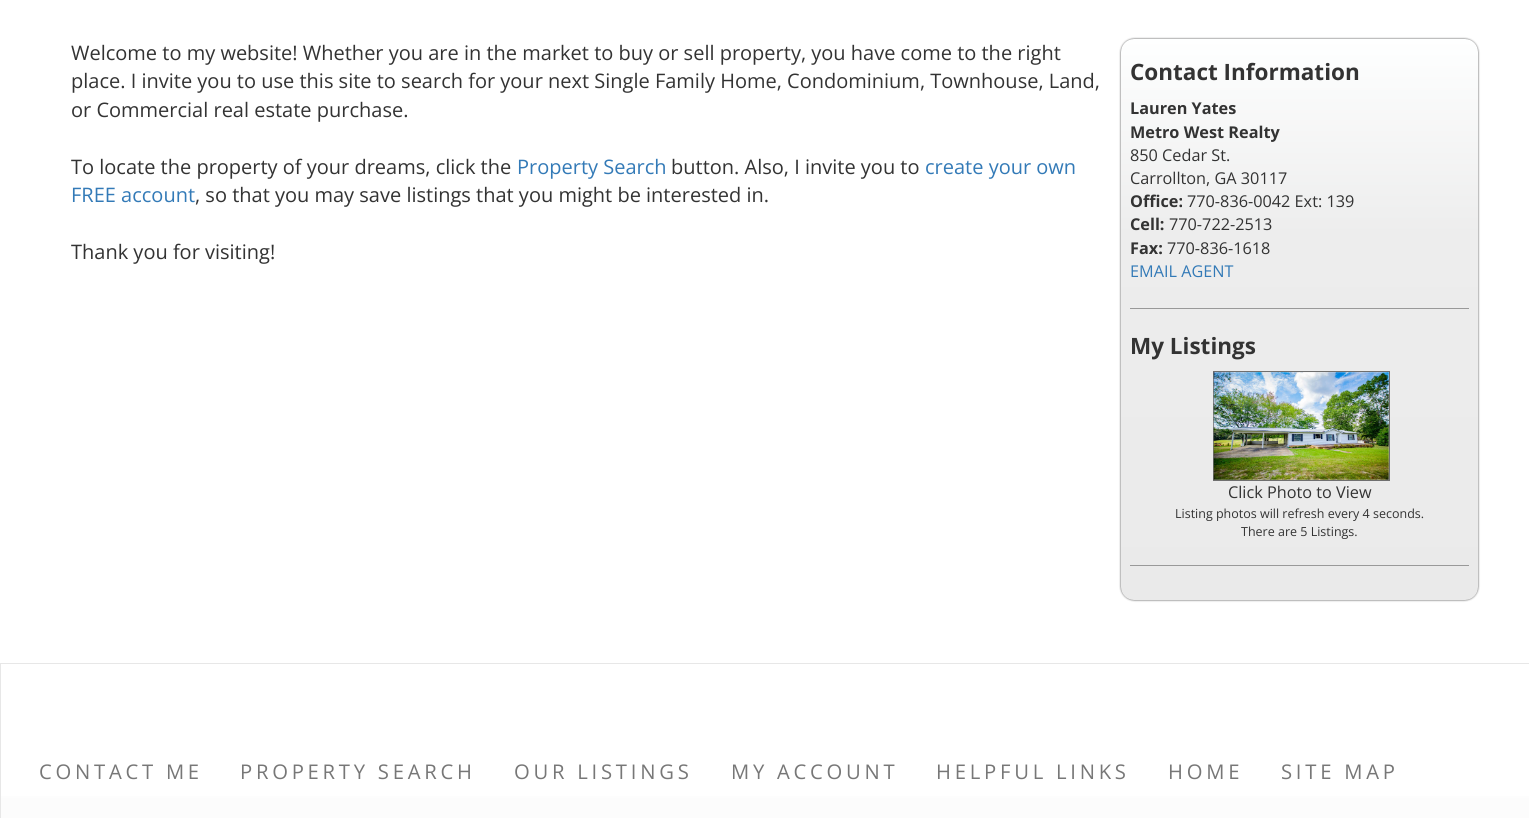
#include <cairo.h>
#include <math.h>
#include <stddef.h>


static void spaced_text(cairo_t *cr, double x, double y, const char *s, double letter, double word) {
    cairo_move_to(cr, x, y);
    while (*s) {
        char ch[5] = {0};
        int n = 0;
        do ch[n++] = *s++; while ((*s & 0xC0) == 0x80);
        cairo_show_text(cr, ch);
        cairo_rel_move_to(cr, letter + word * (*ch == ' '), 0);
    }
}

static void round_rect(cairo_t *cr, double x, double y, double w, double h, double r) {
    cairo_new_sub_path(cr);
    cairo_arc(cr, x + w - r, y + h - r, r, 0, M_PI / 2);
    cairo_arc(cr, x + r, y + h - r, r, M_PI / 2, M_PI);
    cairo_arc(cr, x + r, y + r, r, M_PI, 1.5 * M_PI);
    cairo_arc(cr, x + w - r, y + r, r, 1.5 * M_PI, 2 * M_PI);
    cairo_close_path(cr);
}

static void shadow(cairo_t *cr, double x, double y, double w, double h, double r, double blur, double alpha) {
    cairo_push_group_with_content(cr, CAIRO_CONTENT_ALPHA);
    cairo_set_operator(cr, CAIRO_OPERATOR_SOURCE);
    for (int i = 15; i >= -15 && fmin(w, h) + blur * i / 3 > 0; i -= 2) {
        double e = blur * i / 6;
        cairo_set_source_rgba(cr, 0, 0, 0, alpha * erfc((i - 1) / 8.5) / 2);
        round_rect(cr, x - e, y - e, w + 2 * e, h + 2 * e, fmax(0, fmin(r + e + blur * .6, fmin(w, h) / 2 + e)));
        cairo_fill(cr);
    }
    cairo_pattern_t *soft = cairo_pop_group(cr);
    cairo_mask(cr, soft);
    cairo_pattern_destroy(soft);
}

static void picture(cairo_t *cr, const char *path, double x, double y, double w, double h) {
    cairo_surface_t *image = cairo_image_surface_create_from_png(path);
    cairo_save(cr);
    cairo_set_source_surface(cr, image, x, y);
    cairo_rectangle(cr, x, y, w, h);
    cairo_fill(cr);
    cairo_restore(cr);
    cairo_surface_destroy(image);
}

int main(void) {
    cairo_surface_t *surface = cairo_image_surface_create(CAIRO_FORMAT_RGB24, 1529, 818);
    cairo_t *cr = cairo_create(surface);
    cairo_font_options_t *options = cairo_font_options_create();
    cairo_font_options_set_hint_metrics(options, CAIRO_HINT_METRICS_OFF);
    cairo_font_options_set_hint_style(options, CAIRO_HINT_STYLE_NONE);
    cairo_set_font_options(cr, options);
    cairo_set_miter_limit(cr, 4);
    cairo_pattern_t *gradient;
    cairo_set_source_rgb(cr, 1, 1, 1);
    cairo_paint(cr);
    cairo_select_font_face(cr, "Open Sans", CAIRO_FONT_SLANT_NORMAL, CAIRO_FONT_WEIGHT_NORMAL);
    cairo_set_font_size(cr, 20);
    cairo_set_source_rgb(cr, 0.2, 0.2, 0.2);
    cairo_move_to(cr, 71, 60);
    cairo_show_text(cr, "Welcome to my website! Whether you are in the market to buy or sell property, you have come to the right");
    cairo_move_to(cr, 71, 88);
    cairo_show_text(cr, "place. I invite you to use this site to search for your next Single Family Home, Condominium, Townhouse, Land,");
    cairo_move_to(cr, 71, 117);
    cairo_show_text(cr, "or Commercial real estate purchase.");
    cairo_move_to(cr, 71, 174);
    cairo_show_text(cr, "To locate the property of your dreams, click the");
    cairo_set_source_rgb(cr, 0.2, 0.478, 0.718);
    cairo_move_to(cr, 517, 174);
    cairo_show_text(cr, "Property Search");
    cairo_set_source_rgb(cr, 0.2, 0.2, 0.2);
    cairo_move_to(cr, 671, 174);
    cairo_show_text(cr, "button. Also, I invite you to");
    cairo_set_source_rgb(cr, 0.2, 0.478, 0.718);
    cairo_move_to(cr, 925, 174);
    cairo_show_text(cr, "create your own");
    cairo_move_to(cr, 71, 202);
    cairo_show_text(cr, "FREE account");
    cairo_set_source_rgb(cr, 0.2, 0.2, 0.2);
    cairo_move_to(cr, 195, 202);
    cairo_show_text(cr, ", so that you may save listings that you might be interested in.");
    cairo_move_to(cr, 71, 259);
    cairo_show_text(cr, "Thank you for visiting!");
    cairo_set_source_rgb(cr, 0, 0, 0);
    shadow(cr, 1121, 39, 357, 561, 13, 1, 0.75);
    gradient = cairo_pattern_create_linear(1299, 39, 1299, 600);
    cairo_pattern_add_color_stop_rgba(gradient, 0, 0.996, 1, 1, 1);
    cairo_pattern_add_color_stop_rgba(gradient, 0.35, 0.929, 0.929, 0.929, 1);
    cairo_pattern_add_color_stop_rgba(gradient, 1, 0.918, 0.918, 0.918, 1);
    cairo_set_source(cr, gradient);
    cairo_pattern_destroy(gradient);
    round_rect(cr, 1121, 39, 357, 561, 13);
    cairo_fill(cr);
    cairo_select_font_face(cr, "Open Sans", CAIRO_FONT_SLANT_NORMAL, CAIRO_FONT_WEIGHT_BOLD);
    cairo_set_font_size(cr, 22.5);
    cairo_set_source_rgb(cr, 0.2, 0.2, 0.2);
    cairo_move_to(cr, 1130, 80);
    cairo_show_text(cr, "Contact Information");
    cairo_set_font_size(cr, 16.25);
    cairo_move_to(cr, 1130, 114);
    cairo_show_text(cr, "Lauren Yates");
    cairo_move_to(cr, 1130, 138);
    cairo_show_text(cr, "Metro West Realty");
    cairo_select_font_face(cr, "Open Sans", CAIRO_FONT_SLANT_NORMAL, CAIRO_FONT_WEIGHT_NORMAL);
    cairo_move_to(cr, 1130, 161);
    cairo_show_text(cr, "850 Cedar St.");
    cairo_move_to(cr, 1130, 184);
    cairo_show_text(cr, "Carrollton, GA 30117");
    cairo_select_font_face(cr, "Open Sans", CAIRO_FONT_SLANT_NORMAL, CAIRO_FONT_WEIGHT_BOLD);
    cairo_move_to(cr, 1130, 207);
    cairo_show_text(cr, "Office:");
    cairo_select_font_face(cr, "Open Sans", CAIRO_FONT_SLANT_NORMAL, CAIRO_FONT_WEIGHT_NORMAL);
    cairo_move_to(cr, 1187, 207);
    cairo_show_text(cr, "770-836-0042 Ext: 139");
    cairo_select_font_face(cr, "Open Sans", CAIRO_FONT_SLANT_NORMAL, CAIRO_FONT_WEIGHT_BOLD);
    cairo_move_to(cr, 1130, 230);
    cairo_show_text(cr, "Cell:");
    cairo_select_font_face(cr, "Open Sans", CAIRO_FONT_SLANT_NORMAL, CAIRO_FONT_WEIGHT_NORMAL);
    cairo_move_to(cr, 1169, 230);
    cairo_show_text(cr, "770-722-2513");
    cairo_select_font_face(cr, "Open Sans", CAIRO_FONT_SLANT_NORMAL, CAIRO_FONT_WEIGHT_BOLD);
    cairo_move_to(cr, 1130, 254);
    cairo_show_text(cr, "Fax:");
    cairo_select_font_face(cr, "Open Sans", CAIRO_FONT_SLANT_NORMAL, CAIRO_FONT_WEIGHT_NORMAL);
    cairo_move_to(cr, 1167, 254);
    cairo_show_text(cr, "770-836-1618");
    cairo_set_source_rgb(cr, 0.2, 0.478, 0.718);
    cairo_move_to(cr, 1130, 277);
    cairo_show_text(cr, "EMAIL AGENT");
    cairo_set_source_rgb(cr, 0.6, 0.6, 0.6);
    cairo_rectangle(cr, 1130, 308, 339, 1);
    cairo_fill(cr);
    cairo_select_font_face(cr, "Open Sans", CAIRO_FONT_SLANT_NORMAL, CAIRO_FONT_WEIGHT_BOLD);
    cairo_set_font_size(cr, 22.5);
    cairo_set_source_rgb(cr, 0.2, 0.2, 0.2);
    cairo_move_to(cr, 1130, 354);
    cairo_show_text(cr, "My Listings");
    cairo_rectangle(cr, 1213.5, 371.5, 176, 109);
    cairo_set_source_rgb(cr, 0.435, 0.435, 0.435);
    cairo_set_line_width(cr, 1);
    cairo_stroke(cr);
    picture(cr, "img1.png", 1213, 372, 176, 108);
    cairo_select_font_face(cr, "Open Sans", CAIRO_FONT_SLANT_NORMAL, CAIRO_FONT_WEIGHT_NORMAL);
    cairo_set_font_size(cr, 16.25);
    cairo_set_source_rgb(cr, 0.2, 0.2, 0.2);
    cairo_move_to(cr, 1228, 498);
    cairo_show_text(cr, "Click Photo to View");
    cairo_set_font_size(cr, 12.5);
    cairo_move_to(cr, 1175, 518);
    cairo_show_text(cr, "Listing photos will refresh every 4 seconds.");
    cairo_move_to(cr, 1241, 536);
    cairo_show_text(cr, "There are 5 Listings.");
    cairo_set_source_rgb(cr, 0.6, 0.6, 0.6);
    cairo_rectangle(cr, 1130, 565, 339, 1);
    cairo_fill(cr);
    gradient = cairo_pattern_create_linear(765, 664, 765, 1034);
    cairo_pattern_add_color_stop_rgba(gradient, 0, 1, 1, 1, 1);
    cairo_pattern_add_color_stop_rgba(gradient, 1, 0.973, 0.973, 0.973, 1);
    cairo_set_source(cr, gradient);
    cairo_pattern_destroy(gradient);
    cairo_rectangle(cr, 1, 796, 1528, 22);
    cairo_fill(cr);
    cairo_rectangle(cr, 0.5, 663.5, 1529, 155);
    cairo_set_source_rgb(cr, 0.906, 0.906, 0.906);
    cairo_stroke(cr);
    cairo_set_font_size(cr, 20.25);
    cairo_set_source_rgb(cr, 0.467, 0.467, 0.467);
    spaced_text(cr, 39, 779, "CONTACT ME", 3.75, 0);
    spaced_text(cr, 240, 779, "PROPERTY SEARCH", 3.75, 0);
    spaced_text(cr, 514, 779, "OUR LISTINGS", 3.75, 0);
    spaced_text(cr, 731, 779, "MY ACCOUNT", 3.75, 0);
    spaced_text(cr, 936, 779, "HELPFUL LINKS", 3.75, 0);
    spaced_text(cr, 1168, 779, "HOME", 3.75, 0);
    spaced_text(cr, 1281, 779, "SITE MAP", 3.75, 0);
    cairo_surface_write_to_png(surface, "page.png");
    cairo_font_options_destroy(options);
    cairo_destroy(cr);
    cairo_surface_destroy(surface);
    return 0;
}
